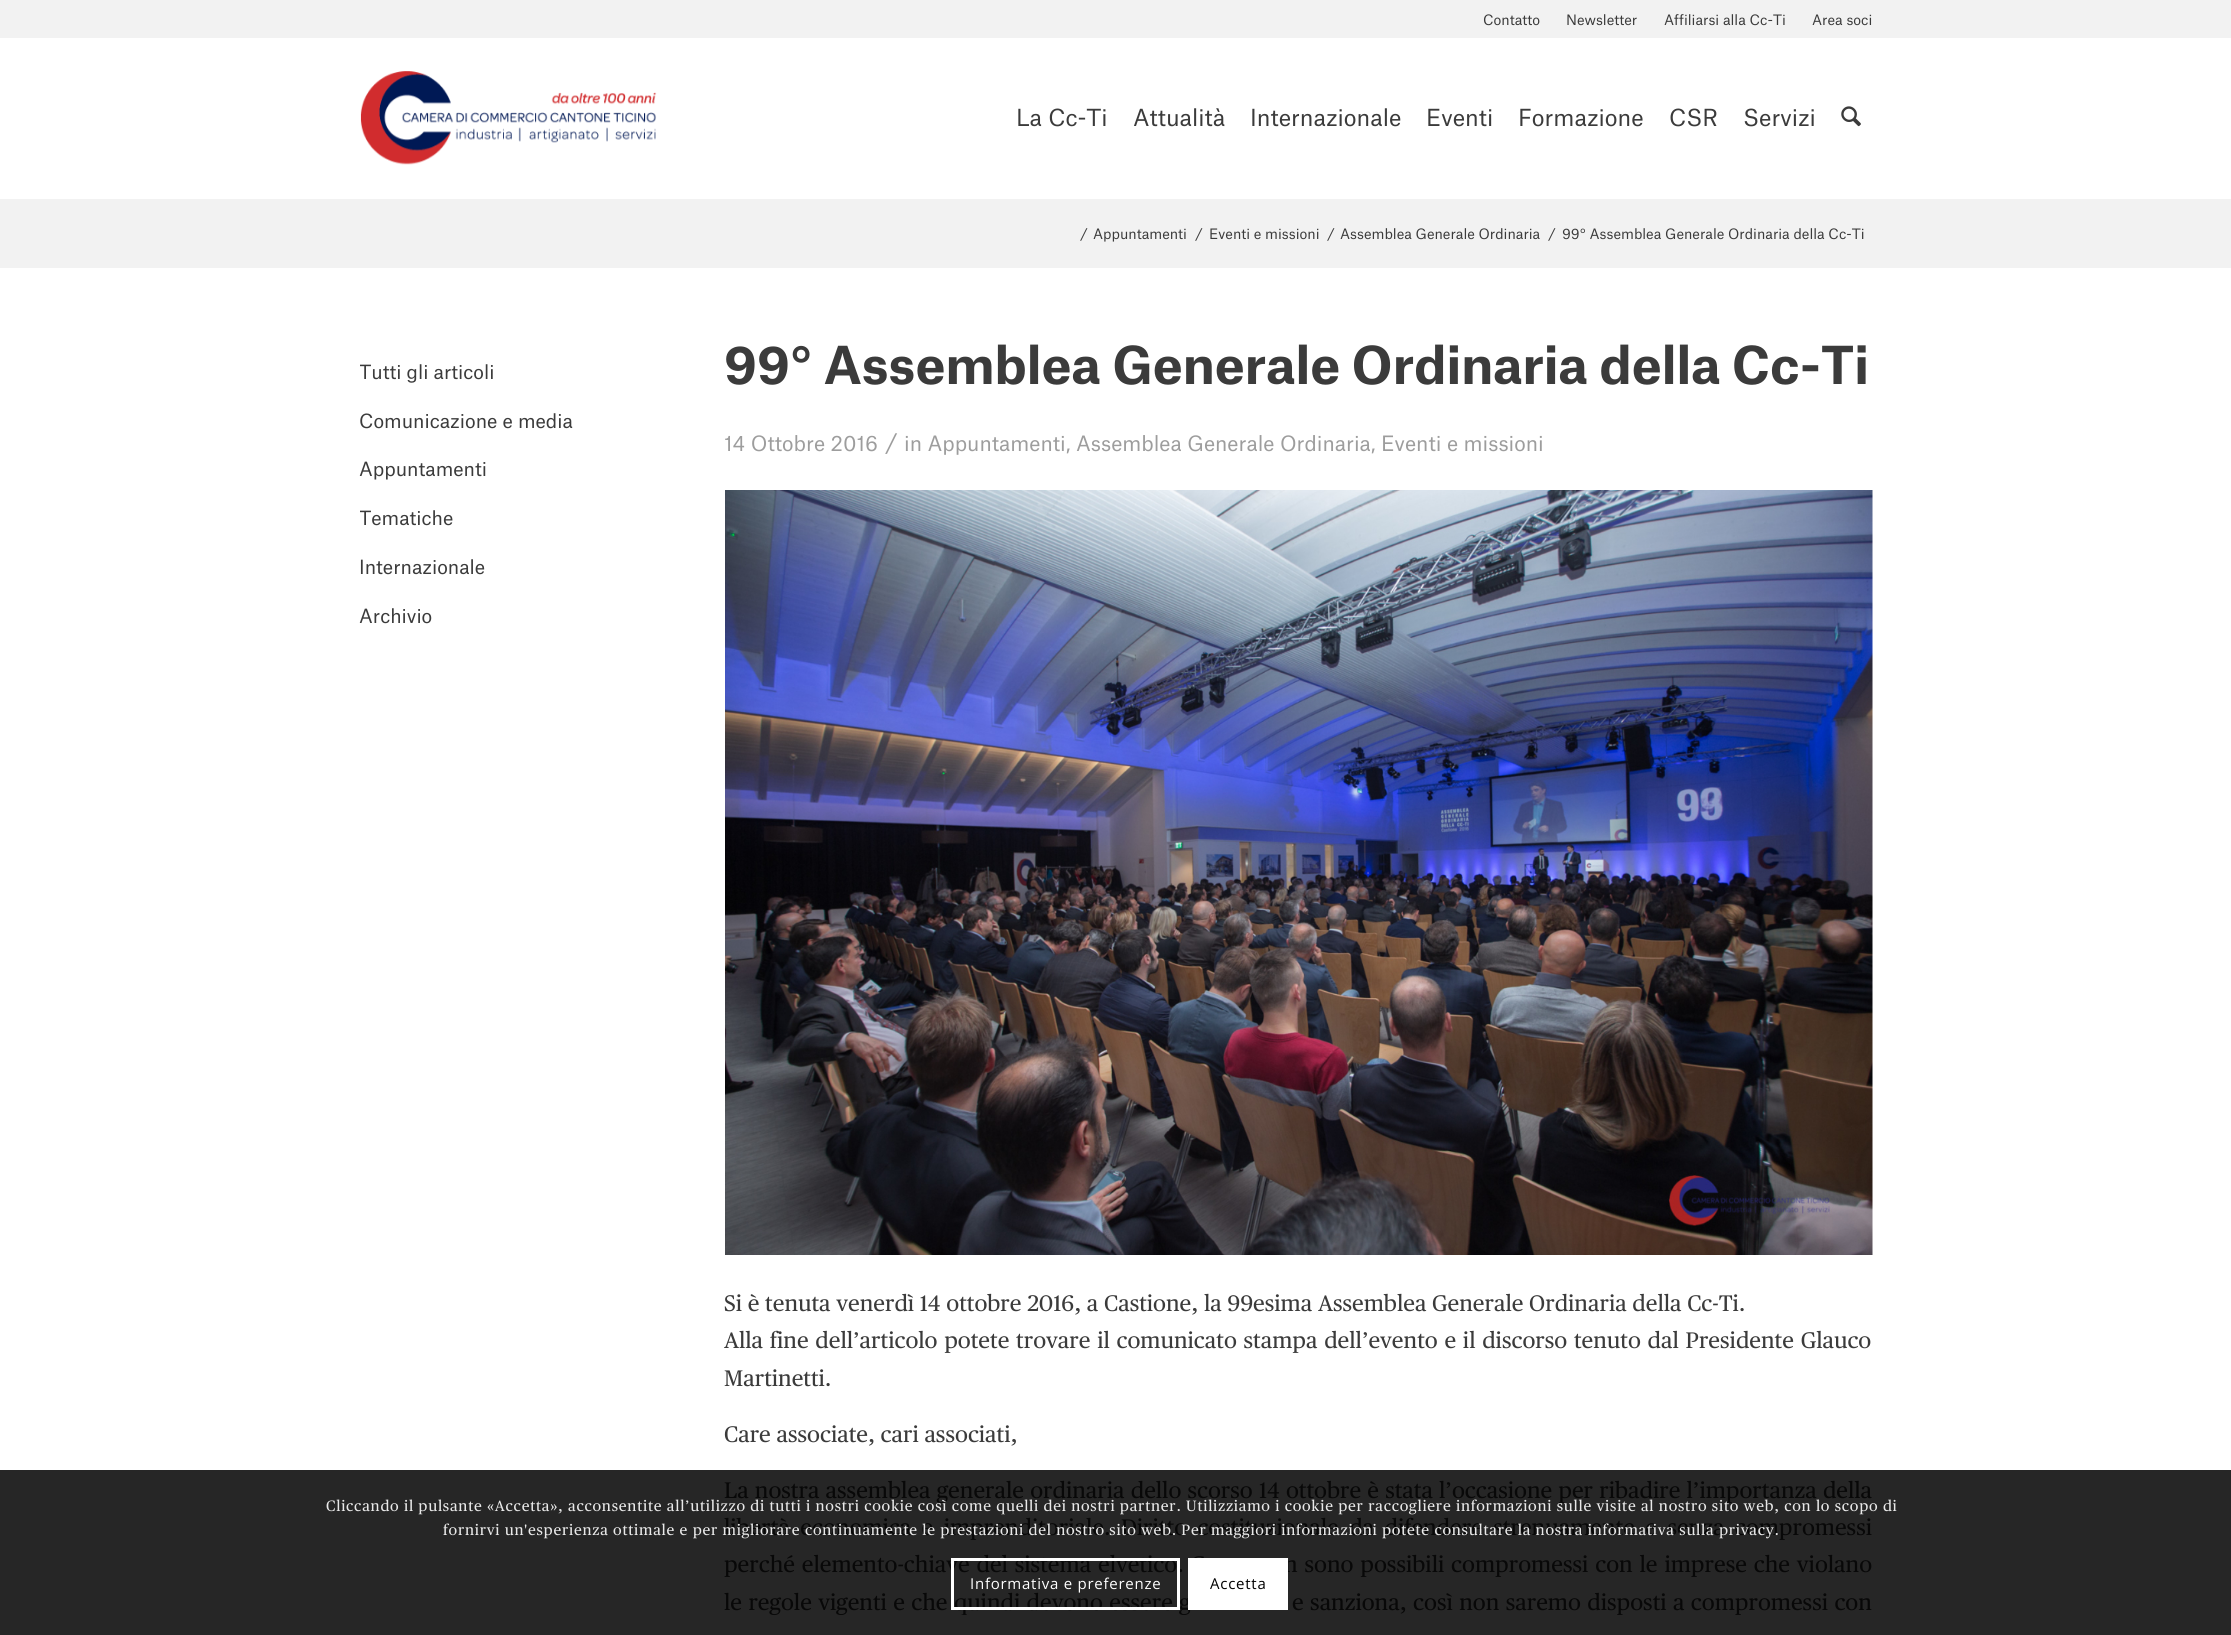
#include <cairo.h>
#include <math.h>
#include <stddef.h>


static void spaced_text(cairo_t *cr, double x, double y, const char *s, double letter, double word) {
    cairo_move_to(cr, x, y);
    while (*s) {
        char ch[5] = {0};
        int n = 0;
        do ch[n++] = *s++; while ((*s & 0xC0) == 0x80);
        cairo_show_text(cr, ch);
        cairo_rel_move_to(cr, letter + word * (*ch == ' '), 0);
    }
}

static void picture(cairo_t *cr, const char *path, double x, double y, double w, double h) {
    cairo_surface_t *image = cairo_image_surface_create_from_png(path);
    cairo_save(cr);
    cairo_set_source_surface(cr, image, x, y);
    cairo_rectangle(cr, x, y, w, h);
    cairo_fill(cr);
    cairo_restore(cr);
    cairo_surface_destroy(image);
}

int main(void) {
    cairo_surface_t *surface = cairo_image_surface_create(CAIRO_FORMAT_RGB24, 2231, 1635);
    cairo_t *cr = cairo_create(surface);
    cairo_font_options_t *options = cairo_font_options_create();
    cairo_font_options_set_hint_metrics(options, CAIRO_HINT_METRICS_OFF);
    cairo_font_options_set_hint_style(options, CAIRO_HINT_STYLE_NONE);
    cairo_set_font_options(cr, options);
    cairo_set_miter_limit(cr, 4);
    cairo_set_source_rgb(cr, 1, 1, 1);
    cairo_paint(cr);
    cairo_set_source_rgb(cr, 0.149, 0.149, 0.149);
    cairo_rectangle(cr, 0, 1470, 2231, 165);
    cairo_fill(cr);
    cairo_set_source_rgb(cr, 0.949, 0.949, 0.949);
    cairo_rectangle(cr, 0, 0, 2231, 38);
    cairo_fill(cr);
    cairo_select_font_face(cr, "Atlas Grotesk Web", CAIRO_FONT_SLANT_NORMAL, CAIRO_FONT_WEIGHT_NORMAL);
    cairo_set_font_size(cr, 13.75);
    cairo_set_source_rgb(cr, 0.231, 0.231, 0.231);
    cairo_move_to(cr, 1483, 25);
    cairo_show_text(cr, "Contatto");
    cairo_move_to(cr, 1566, 25);
    cairo_show_text(cr, "Newsletter");
    cairo_move_to(cr, 1664, 25);
    cairo_show_text(cr, "Affiliarsi alla Cc-Ti");
    cairo_move_to(cr, 1812, 25);
    cairo_show_text(cr, "Area soci");
    picture(cr, "img1.png", 360, 71, 297, 94);
    cairo_set_font_size(cr, 22.5);
    cairo_move_to(cr, 1016, 126);
    cairo_show_text(cr, "La Cc-Ti");
    cairo_move_to(cr, 1133, 126);
    cairo_show_text(cr, "Attualità");
    cairo_move_to(cr, 1250, 126);
    cairo_show_text(cr, "Internazionale");
    cairo_move_to(cr, 1426, 126);
    cairo_show_text(cr, "Eventi");
    cairo_move_to(cr, 1518, 126);
    cairo_show_text(cr, "Formazione");
    cairo_move_to(cr, 1669, 126);
    cairo_show_text(cr, "CSR");
    cairo_move_to(cr, 1743, 126);
    cairo_show_text(cr, "Servizi");
    picture(cr, "img2.png", 1841, 106, 20, 21);
    cairo_set_source_rgb(cr, 0.949, 0.949, 0.949);
    cairo_rectangle(cr, 0, 199, 2231, 69);
    cairo_fill(cr);
    cairo_set_font_size(cr, 13.75);
    cairo_set_source_rgb(cr, 0.231, 0.231, 0.231);
    cairo_move_to(cr, 1080, 239);
    cairo_show_text(cr, "/");
    cairo_move_to(cr, 1093, 239);
    cairo_show_text(cr, "Appuntamenti");
    cairo_move_to(cr, 1195, 239);
    cairo_show_text(cr, "/");
    cairo_move_to(cr, 1209, 239);
    cairo_show_text(cr, "Eventi e missioni");
    cairo_move_to(cr, 1327, 239);
    cairo_show_text(cr, "/");
    cairo_move_to(cr, 1340, 239);
    cairo_show_text(cr, "Assemblea Generale Ordinaria");
    cairo_move_to(cr, 1548, 239);
    cairo_show_text(cr, "/");
    cairo_move_to(cr, 1562, 239);
    cairo_show_text(cr, "99° Assemblea Generale Ordinaria della Cc-Ti");
    cairo_save(cr);
    cairo_rectangle(cr, 360, 268, 304, 433);
    cairo_clip(cr);
    cairo_set_font_size(cr, 18.75);
    cairo_move_to(cr, 359, 379);
    cairo_show_text(cr, "Tutti gli articoli");
    cairo_restore(cr);
    cairo_set_font_size(cr, 18.75);
    cairo_move_to(cr, 359, 428);
    cairo_show_text(cr, "Comunicazione e media");
    cairo_move_to(cr, 359, 476);
    cairo_show_text(cr, "Appuntamenti");
    cairo_save(cr);
    cairo_rectangle(cr, 360, 268, 304, 433);
    cairo_clip(cr);
    cairo_move_to(cr, 359, 525);
    cairo_show_text(cr, "Tematiche");
    cairo_restore(cr);
    cairo_move_to(cr, 359, 574);
    cairo_show_text(cr, "Internazionale");
    cairo_move_to(cr, 359, 623);
    cairo_show_text(cr, "Archivio");
    cairo_select_font_face(cr, "Atlas Grotesk Web", CAIRO_FONT_SLANT_NORMAL, CAIRO_FONT_WEIGHT_BOLD);
    cairo_set_font_size(cr, 50);
    cairo_move_to(cr, 724, 384);
    cairo_show_text(cr, "99° Assemblea Generale Ordinaria della Cc-Ti");
    cairo_select_font_face(cr, "Atlas Grotesk Web", CAIRO_FONT_SLANT_NORMAL, CAIRO_FONT_WEIGHT_NORMAL);
    cairo_set_font_size(cr, 20.25);
    cairo_set_source_rgb(cr, 0.616, 0.616, 0.616);
    cairo_move_to(cr, 724, 451);
    cairo_show_text(cr, "14 Ottobre 2016");
    cairo_set_font_size(cr, 22.5);
    cairo_move_to(cr, 885, 451);
    cairo_show_text(cr, "/");
    cairo_set_font_size(cr, 20.25);
    cairo_move_to(cr, 904, 451);
    cairo_show_text(cr, "in Appuntamenti, Assemblea Generale Ordinaria, Eventi e missioni");
    picture(cr, "img3.png", 725, 490, 1148, 765);
    cairo_select_font_face(cr, "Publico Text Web", CAIRO_FONT_SLANT_NORMAL, CAIRO_FONT_WEIGHT_NORMAL);
    cairo_set_font_size(cr, 22.5);
    cairo_set_source_rgb(cr, 0.231, 0.231, 0.231);
    cairo_move_to(cr, 724, 1311);
    cairo_show_text(cr, "Si è tenuta venerdì 14 ottobre 2016, a Castione, la 99esima Assemblea Generale Ordinaria della Cc-Ti.");
    spaced_text(cr, 724, 1348, "Alla fine dell’articolo potete trovare il comunicato stampa dell’evento e il discorso tenuto dal Presidente Glauco", 0, 1.1);
    cairo_move_to(cr, 724, 1386);
    cairo_show_text(cr, "Martinetti.");
    cairo_move_to(cr, 724, 1442);
    cairo_show_text(cr, "Care associate, cari associati,");
    cairo_set_source_rgb(cr, 0.035, 0.035, 0.035);
    spaced_text(cr, 724, 1498, "La nostra assemblea generale ordinaria dello scorso 14 ottobre è stata l’occasione per ribadire l’importanza della", 0, 0.5);
    spaced_text(cr, 724, 1535, "libertà economica e imprenditoriale. Diritto costituzionale da difendere strenuamente e senza compromessi", 0, 4.75);
    spaced_text(cr, 724, 1572, "perché elemento-chiave del sistema elvetico. C", 0, 1.25);
    spaced_text(cr, 1284, 1572, "n sono possibili compromessi con le imprese che violano", 0, 1.25);
    spaced_text(cr, 724, 1610, "le regole vigenti e che quindi devono essere g", 0, 0.75);
    spaced_text(cr, 1292, 1610, "e sanziona, così non saremo disposti a compromessi con", 0, 0.75);
    cairo_set_font_size(cr, 15);
    cairo_set_source_rgb(cr, 0.914, 0.914, 0.914);
    spaced_text(cr, 326, 1511, "Cliccando il pulsante «Accetta», acconsentite all’utilizzo di tutti i nostri cookie così come quelli dei nostri partner. Utilizziamo i cookie per raccogliere informazioni sulle visite al nostro sito web, con lo scopo di", 0.75, 0);
    spaced_text(cr, 443, 1535, "fornirvi un'esperienza ottimale e per migliorare continuamente le prestazioni del nostro sito web. Per maggiori informazioni potete consultare la nostra informativa sulla privacy.", 0.75, 0);
    cairo_rectangle(cr, 952.5, 1559.5, 226, 49);
    cairo_set_source_rgb(cr, 1, 1, 1);
    cairo_set_line_width(cr, 3);
    cairo_stroke(cr);
    cairo_select_font_face(cr, "Open Sans", CAIRO_FONT_SLANT_NORMAL, CAIRO_FONT_WEIGHT_NORMAL);
    spaced_text(cr, 970, 1589, "Informativa e preferenze", 0.75, 0);
    cairo_rectangle(cr, 1188, 1558, 100, 52);
    cairo_fill(cr);
    cairo_set_source_rgb(cr, 0, 0, 0);
    spaced_text(cr, 1210, 1589, "Accetta", 0.75, 0);
    cairo_surface_write_to_png(surface, "page.png");
    cairo_font_options_destroy(options);
    cairo_destroy(cr);
    cairo_surface_destroy(surface);
    return 0;
}
